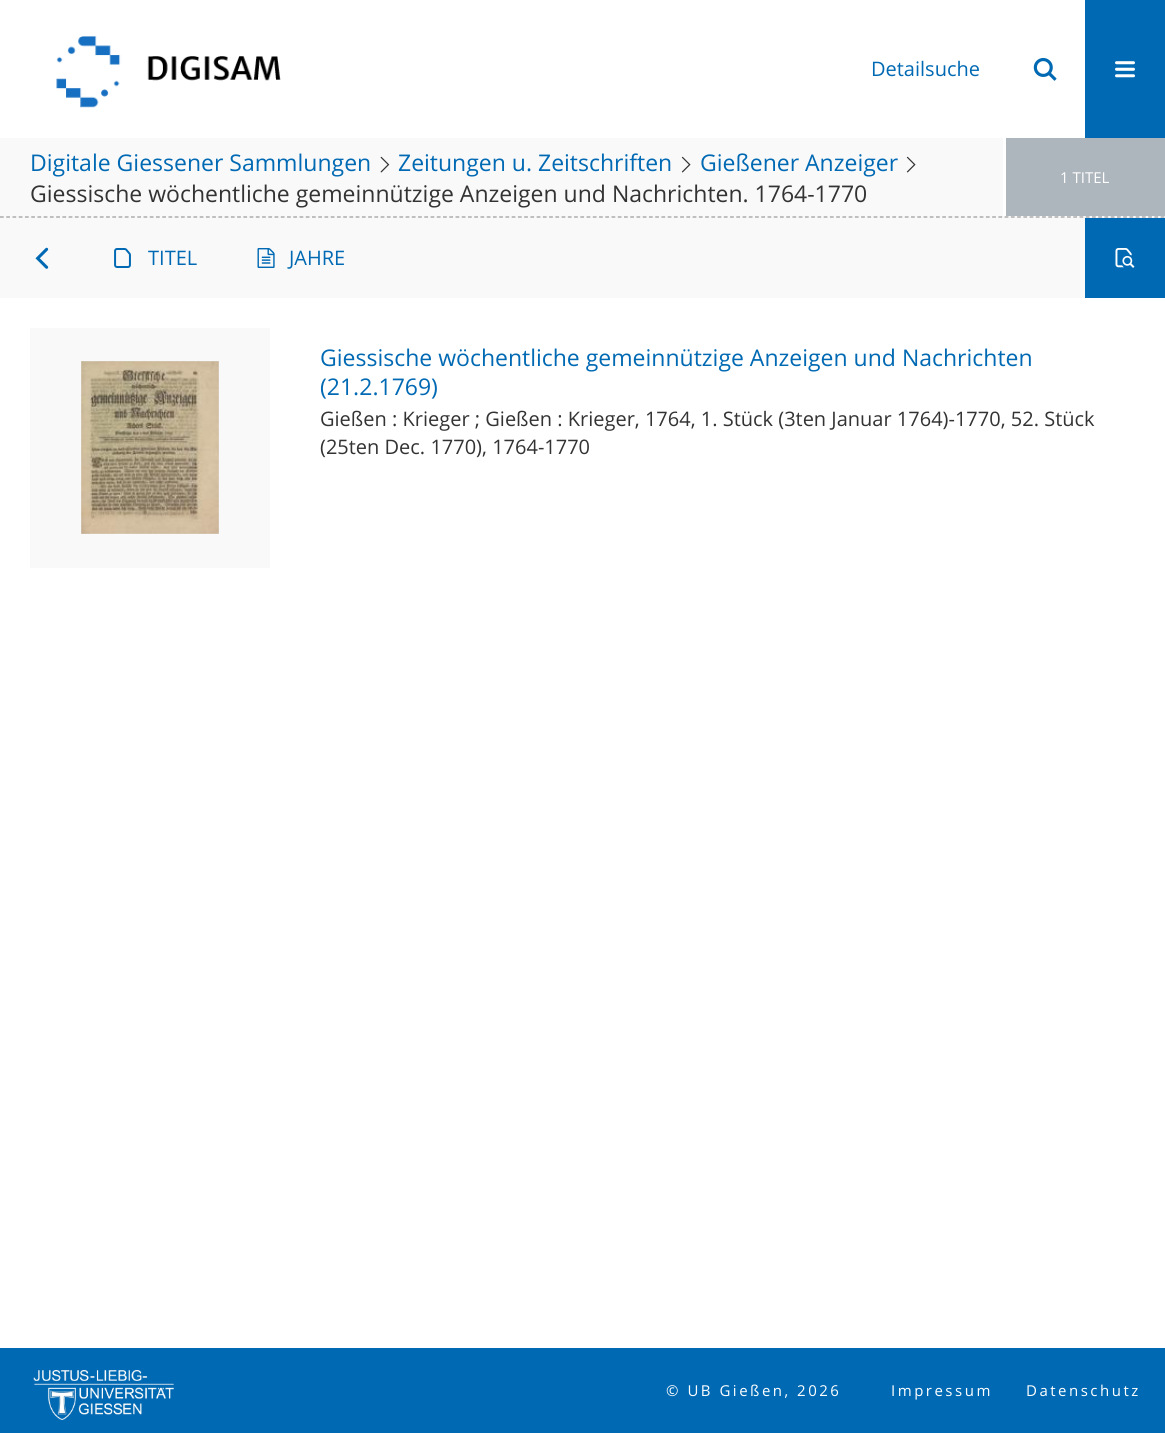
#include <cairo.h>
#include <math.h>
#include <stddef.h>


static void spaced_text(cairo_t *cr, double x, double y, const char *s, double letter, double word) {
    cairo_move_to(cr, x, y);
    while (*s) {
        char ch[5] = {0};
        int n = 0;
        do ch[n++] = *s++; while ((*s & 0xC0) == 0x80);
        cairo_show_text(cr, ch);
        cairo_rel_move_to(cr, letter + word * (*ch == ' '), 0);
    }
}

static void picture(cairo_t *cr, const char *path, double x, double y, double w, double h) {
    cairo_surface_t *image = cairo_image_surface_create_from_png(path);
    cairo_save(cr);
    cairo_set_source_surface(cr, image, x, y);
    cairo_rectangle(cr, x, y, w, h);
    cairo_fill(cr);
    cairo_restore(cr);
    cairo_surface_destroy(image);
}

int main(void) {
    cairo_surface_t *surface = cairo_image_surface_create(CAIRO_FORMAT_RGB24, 1165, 1433);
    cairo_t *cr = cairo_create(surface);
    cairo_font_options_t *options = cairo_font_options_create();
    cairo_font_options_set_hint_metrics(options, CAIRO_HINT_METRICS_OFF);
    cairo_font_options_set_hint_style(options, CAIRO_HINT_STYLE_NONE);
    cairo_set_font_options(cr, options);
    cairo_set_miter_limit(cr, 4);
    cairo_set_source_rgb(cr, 1, 1, 1);
    cairo_paint(cr);
    picture(cr, "img1.png", 56, 36, 225, 72);
    cairo_select_font_face(cr, "Open Sans", CAIRO_FONT_SLANT_NORMAL, CAIRO_FONT_WEIGHT_NORMAL);
    cairo_set_font_size(cr, 20);
    cairo_set_source_rgb(cr, 0, 0.412, 0.702);
    cairo_move_to(cr, 871, 76);
    cairo_show_text(cr, "Detailsuche");
    picture(cr, "img2.png", 1033, 58, 24, 23);
    cairo_rectangle(cr, 1085, 0, 80, 138);
    cairo_fill(cr);
    picture(cr, "img3.png", 1115, 61, 20, 17);
    cairo_set_source_rgb(cr, 0.973, 0.976, 0.98);
    cairo_rectangle(cr, 0, 138, 1165, 80);
    cairo_fill(cr);
    cairo_new_path(cr);
    cairo_move_to(cr, 0, 217);
    cairo_line_to(cr, 1165, 217);
    cairo_set_source_rgb(cr, 0.6, 0.6, 0.6);
    cairo_set_line_width(cr, 1.2);
    cairo_set_dash(cr, (double[]){3.75, 2.49}, 2, 0);
    cairo_stroke(cr);
    cairo_set_font_size(cr, 23);
    cairo_set_source_rgb(cr, 0, 0.412, 0.702);
    cairo_move_to(cr, 30, 171);
    cairo_show_text(cr, "Digitale Giessener Sammlungen");
    picture(cr, "img4.png", 380, 156, 10, 17);
    cairo_move_to(cr, 398, 171);
    cairo_show_text(cr, "Zeitungen u. Zeitschriften");
    picture(cr, "img5.png", 681, 156, 10, 17);
    cairo_move_to(cr, 700, 171);
    cairo_show_text(cr, "Gießener Anzeiger");
    picture(cr, "img5.png", 906, 156, 10, 17);
    cairo_set_source_rgb(cr, 0.2, 0.2, 0.2);
    cairo_move_to(cr, 30, 202);
    cairo_show_text(cr, "Giessische wöchentliche gemeinnützige Anzeigen und Nachrichten. 1764-1770");
    cairo_set_source_rgb(cr, 0.678, 0.71, 0.741);
    cairo_rectangle(cr, 1006, 138, 159, 78);
    cairo_fill(cr);
    cairo_set_source_rgb(cr, 1, 1, 1);
    cairo_rectangle(cr, 1003, 138, 3, 78);
    cairo_fill(cr);
    cairo_set_font_size(cr, 15);
    cairo_move_to(cr, 1060, 183);
    cairo_show_text(cr, "1 TITEL");
    cairo_set_source_rgb(cr, 0.973, 0.976, 0.98);
    cairo_rectangle(cr, 0, 218, 1085, 80);
    cairo_fill(cr);
    picture(cr, "img6.png", 35, 247, 14, 22);
    picture(cr, "img7.png", 114, 248, 17, 20);
    cairo_set_font_size(cr, 20);
    cairo_set_source_rgb(cr, 0, 0.412, 0.702);
    cairo_move_to(cr, 148, 265);
    cairo_show_text(cr, "TITEL");
    picture(cr, "img8.png", 257, 248, 18, 20);
    cairo_move_to(cr, 289, 265);
    cairo_show_text(cr, "JAHRE");
    cairo_rectangle(cr, 1085, 218, 80, 80);
    cairo_fill(cr);
    picture(cr, "img9.png", 1115, 248, 20, 20);
    cairo_set_source_rgb(cr, 0.973, 0.976, 0.98);
    cairo_rectangle(cr, 30, 328, 240, 240);
    cairo_fill(cr);
    cairo_set_source_rgb(cr, 0.894, 0.894, 0.894);
    cairo_rectangle(cr, 81, 361, 138, 173);
    cairo_fill(cr);
    picture(cr, "img10.png", 81, 361, 138, 173);
    cairo_set_font_size(cr, 23);
    cairo_set_source_rgb(cr, 0, 0.412, 0.702);
    cairo_move_to(cr, 320, 366);
    cairo_show_text(cr, "Giessische wöchentliche gemeinnützige Anzeigen und Nachrichten");
    cairo_move_to(cr, 320, 395);
    cairo_show_text(cr, "(21.2.1769)");
    cairo_set_font_size(cr, 20);
    cairo_set_source_rgb(cr, 0.2, 0.2, 0.2);
    cairo_move_to(cr, 320, 426);
    cairo_show_text(cr, "Gießen : Krieger ; Gießen : Krieger, 1764, 1. Stück (3ten Januar 1764)-1770, 52. Stück");
    cairo_move_to(cr, 320, 454);
    cairo_show_text(cr, "(25ten Dec. 1770), 1764-1770");
    cairo_set_source_rgb(cr, 0, 0.412, 0.702);
    cairo_rectangle(cr, 0, 1348, 1165, 85);
    cairo_fill(cr);
    picture(cr, "img11.png", 33, 1370, 141, 50);
    cairo_set_font_size(cr, 15);
    cairo_set_source_rgb(cr, 1, 1, 1);
    spaced_text(cr, 666, 1396, "© UB Gießen, 2026", 2.5, 0);
    spaced_text(cr, 891, 1396, "Impressum", 2.5, 0);
    spaced_text(cr, 1026, 1396, "Datenschutz", 2.5, 0);
    cairo_surface_write_to_png(surface, "page.png");
    cairo_font_options_destroy(options);
    cairo_destroy(cr);
    cairo_surface_destroy(surface);
    return 0;
}
